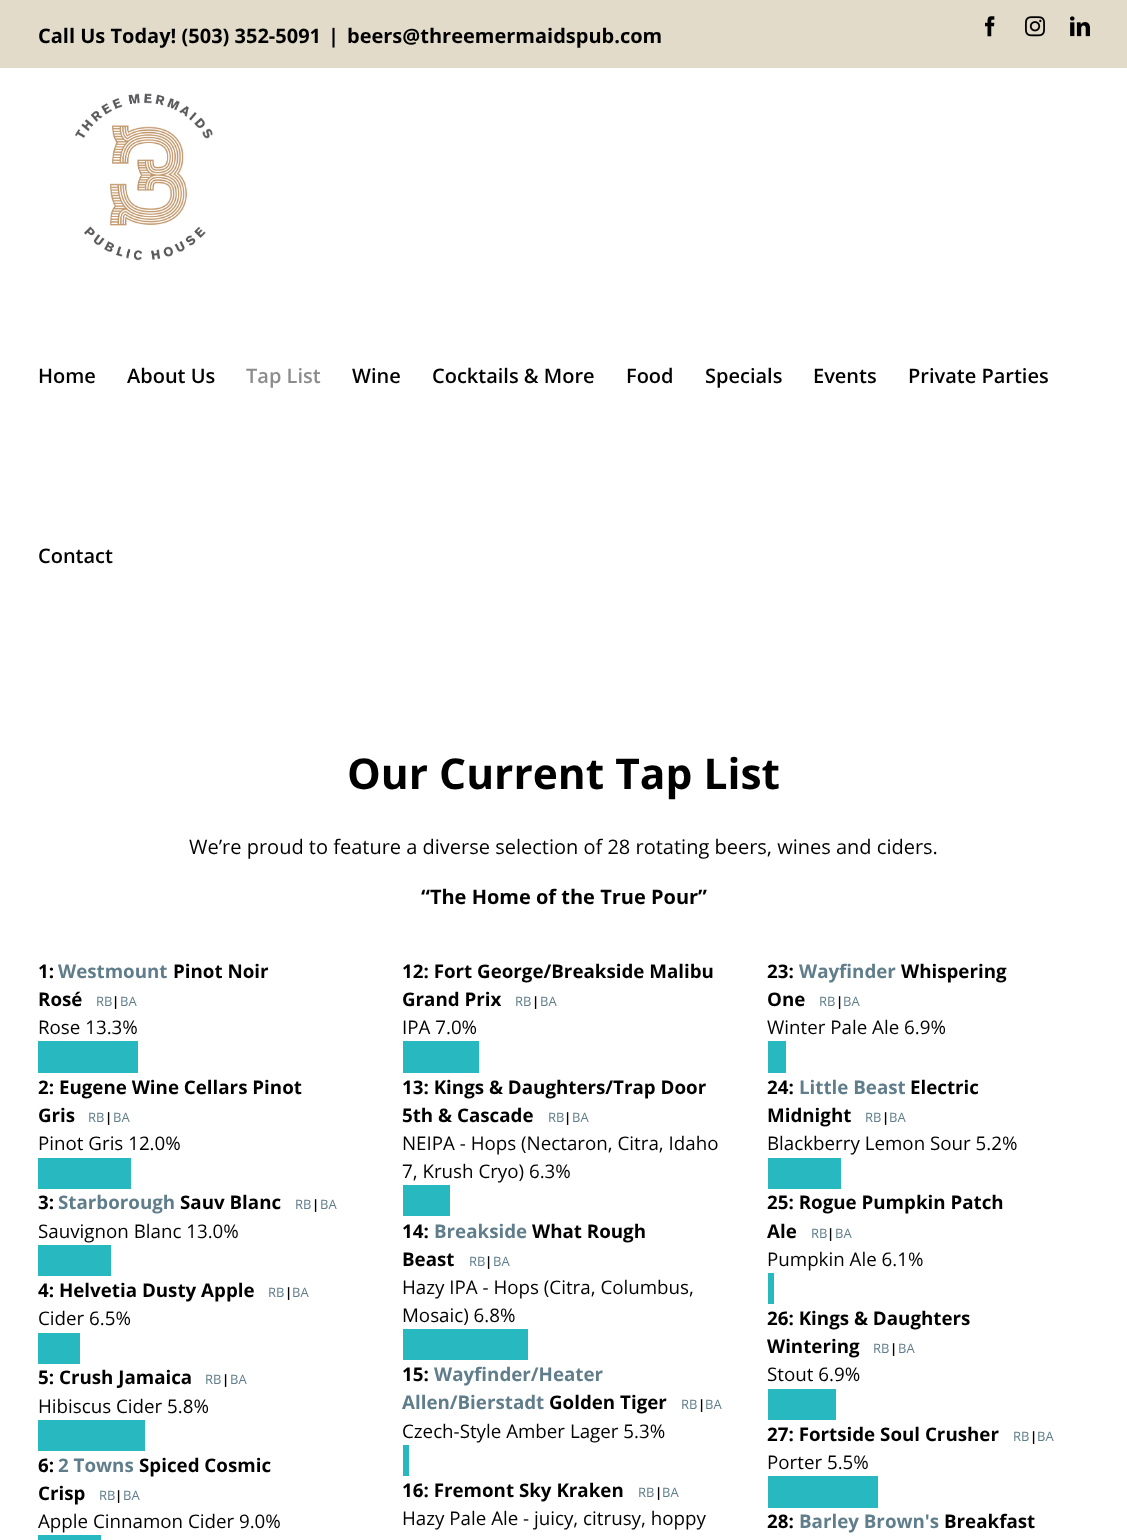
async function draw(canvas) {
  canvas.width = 1127;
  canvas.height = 1540;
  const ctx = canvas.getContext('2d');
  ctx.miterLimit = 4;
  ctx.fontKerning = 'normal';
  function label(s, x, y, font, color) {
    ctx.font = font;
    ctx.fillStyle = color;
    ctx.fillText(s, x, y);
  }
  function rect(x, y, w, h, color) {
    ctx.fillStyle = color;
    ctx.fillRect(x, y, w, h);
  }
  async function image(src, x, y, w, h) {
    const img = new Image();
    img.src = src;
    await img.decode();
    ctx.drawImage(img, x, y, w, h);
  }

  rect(0, 0, 1127, 1540, '#fff');
  rect(0, 0, 1127, 68, '#e2dbc9');
  label('Call Us Today! (503) 352-5091', 38, 43, 'bold 20px Open Sans', '#000');
  label('|', 328, 43, 'bold 20px Open Sans', '#000');
  label('beers@threemermaidspub.com', 347, 43, 'bold 20px Open Sans', '#000');
  await image('assets/img1.png', 985, 16, 10, 21);
  await image('assets/img2.png', 1025, 16, 20, 21);
  await image('assets/img3.png', 1070, 16, 20, 21);
  await image('assets/img4.png', 75, 93, 138, 168);
  label('Home', 38, 383, '600 20px Open Sans', '#000');
  label('About Us', 127, 383, '600 20px Open Sans', '#000');
  label('Tap List', 246, 383, '600 20px Open Sans', '#8c8c8c');
  label('Wine', 352, 383, '600 20px Open Sans', '#000');
  label('Cocktails & More', 432, 383, '600 20px Open Sans', '#000');
  label('Food', 626, 383, '600 20px Open Sans', '#000');
  label('Specials', 705, 383, '600 20px Open Sans', '#000');
  label('Events', 813, 383, '600 20px Open Sans', '#000');
  label('Private Parties', 908, 383, '600 20px Open Sans', '#000');
  label('Contact', 38, 563, '600 20px Open Sans', '#000');
  label('Our Current Tap List', 347, 789, 'bold 42.5px Open Sans', '#000');
  label('We’re proud to feature a diverse selection of 28 rotating beers, wines and ciders.', 189, 854, '20px Open Sans', '#000');
  label('“The Home of the True Pour”', 421, 904, 'bold 20px Open Sans', '#000');
  label('1:', 38, 978, 'bold 18.75px Open Sans', '#000');
  label('Westmount', 58, 978, 'bold 18.75px Open Sans', '#607d8b');
  label('Pinot Noir', 173, 978, 'bold 18.75px Open Sans', '#000');
  label('Rosé', 38, 1006, 'bold 18.75px Open Sans', '#000');
  label('RB', 96, 1006, '13px Open Sans', '#607d8b');
  label('|', 112, 1006, 'bold 13px Open Sans', '#000');
  label('BA', 120, 1006, '13px Open Sans', '#607d8b');
  label('Rose 13.3%', 38, 1034, '18.75px Open Sans', '#000');
  rect(38, 1041, 100, 32, '#28b8c0');
  label('2: Eugene Wine Cellars Pinot', 38, 1094, 'bold 18.75px Open Sans', '#000');
  label('Gris', 38, 1122, 'bold 18.75px Open Sans', '#000');
  label('RB', 88, 1122, '13px Open Sans', '#607d8b');
  label('|', 105, 1122, 'bold 13px Open Sans', '#000');
  label('BA', 113, 1122, '13px Open Sans', '#607d8b');
  label('Pinot Gris 12.0%', 38, 1150, '18.75px Open Sans', '#000');
  rect(38, 1158, 93, 31, '#28b8c0');
  label('3:', 38, 1209, 'bold 18.75px Open Sans', '#000');
  label('Starborough', 58, 1209, 'bold 18.75px Open Sans', '#607d8b');
  label('Sauv Blanc', 180, 1209, 'bold 18.75px Open Sans', '#000');
  label('RB', 295, 1209, '13px Open Sans', '#607d8b');
  label('|', 312, 1209, 'bold 13px Open Sans', '#000');
  label('BA', 320, 1209, '13px Open Sans', '#607d8b');
  label('Sauvignon Blanc 13.0%', 38, 1238, '18.75px Open Sans', '#000');
  rect(38, 1245, 73, 31, '#28b8c0');
  label('4: Helvetia Dusty Apple', 38, 1297, 'bold 18.75px Open Sans', '#000');
  label('RB', 268, 1297, '13px Open Sans', '#607d8b');
  label('|', 285, 1297, 'bold 13px Open Sans', '#000');
  label('BA', 292, 1297, '13px Open Sans', '#607d8b');
  label('Cider 6.5%', 38, 1325, '18.75px Open Sans', '#000');
  rect(38, 1333, 42, 31, '#28b8c0');
  label('5: Crush Jamaica', 38, 1384, 'bold 18.75px Open Sans', '#000');
  label('RB', 205, 1384, '13px Open Sans', '#607d8b');
  label('|', 222, 1384, 'bold 13px Open Sans', '#000');
  label('BA', 230, 1384, '13px Open Sans', '#607d8b');
  label('Hibiscus Cider 5.8%', 38, 1413, '18.75px Open Sans', '#000');
  rect(38, 1420, 107, 31, '#28b8c0');
  label('6:', 38, 1472, 'bold 18.75px Open Sans', '#000');
  label('2 Towns', 58, 1472, 'bold 18.75px Open Sans', '#607d8b');
  label('Spiced Cosmic', 139, 1472, 'bold 18.75px Open Sans', '#000');
  label('Crisp', 38, 1500, 'bold 18.75px Open Sans', '#000');
  label('RB', 99, 1500, '13px Open Sans', '#607d8b');
  label('|', 115, 1500, 'bold 13px Open Sans', '#000');
  label('BA', 123, 1500, '13px Open Sans', '#607d8b');
  label('Apple Cinnamon Cider 9.0%', 38, 1528, '18.75px Open Sans', '#000');
  rect(38, 1535, 63, 5, '#28b8c0');
  label('12: Fort George/Breakside Malibu', 402, 978, 'bold 18.75px Open Sans', '#000');
  label('Grand Prix', 402, 1006, 'bold 18.75px Open Sans', '#000');
  label('RB', 515, 1006, '13px Open Sans', '#607d8b');
  label('|', 532, 1006, 'bold 13px Open Sans', '#000');
  label('BA', 540, 1006, '13px Open Sans', '#607d8b');
  label('IPA 7.0%', 402, 1034, '18.75px Open Sans', '#000');
  rect(403, 1041, 76, 32, '#28b8c0');
  label('13: Kings & Daughters/Trap Door', 402, 1094, 'bold 18.75px Open Sans', '#000');
  label('5th & Cascade', 402, 1122, 'bold 18.75px Open Sans', '#000');
  label('RB', 548, 1122, '13px Open Sans', '#607d8b');
  label('|', 564, 1122, 'bold 13px Open Sans', '#000');
  label('BA', 572, 1122, '13px Open Sans', '#607d8b');
  label('NEIPA - Hops (Nectaron, Citra, Idaho', 402, 1150, '18.75px Open Sans', '#000');
  label('7, Krush Cryo) 6.3%', 402, 1178, '18.75px Open Sans', '#000');
  rect(403, 1185, 47, 31, '#28b8c0');
  label('14:', 402, 1238, 'bold 18.75px Open Sans', '#000');
  label('Breakside', 434, 1238, 'bold 18.75px Open Sans', '#607d8b');
  label('What Rough', 532, 1238, 'bold 18.75px Open Sans', '#000');
  label('Beast', 402, 1266, 'bold 18.75px Open Sans', '#000');
  label('RB', 469, 1266, '13px Open Sans', '#607d8b');
  label('|', 485, 1266, 'bold 13px Open Sans', '#000');
  label('BA', 493, 1266, '13px Open Sans', '#607d8b');
  label('Hazy IPA - Hops (Citra, Columbus,', 402, 1294, '18.75px Open Sans', '#000');
  label('Mosaic) 6.8%', 402, 1322, '18.75px Open Sans', '#000');
  rect(403, 1329, 125, 31, '#28b8c0');
  label('15:', 402, 1381, 'bold 18.75px Open Sans', '#000');
  label('Wayfinder/Heater', 434, 1381, 'bold 18.75px Open Sans', '#607d8b');
  label('Allen/Bierstadt', 402, 1409, 'bold 18.75px Open Sans', '#607d8b');
  label('Golden Tiger', 549, 1409, 'bold 18.75px Open Sans', '#000');
  label('RB', 681, 1409, '13px Open Sans', '#607d8b');
  label('|', 698, 1409, 'bold 13px Open Sans', '#000');
  label('BA', 705, 1409, '13px Open Sans', '#607d8b');
  label('Czech-Style Amber Lager 5.3%', 402, 1438, '18.75px Open Sans', '#000');
  rect(403, 1445, 6, 31, '#28b8c0');
  label('16: Fremont Sky Kraken', 402, 1497, 'bold 18.75px Open Sans', '#000');
  label('RB', 638, 1497, '13px Open Sans', '#607d8b');
  label('|', 655, 1497, 'bold 13px Open Sans', '#000');
  label('BA', 662, 1497, '13px Open Sans', '#607d8b');
  label('Hazy Pale Ale - juicy, citrusy, hoppy', 402, 1525, '18.75px Open Sans', '#000');
  label('23:', 767, 978, 'bold 18.75px Open Sans', '#000');
  label('Wayfinder', 799, 978, 'bold 18.75px Open Sans', '#607d8b');
  label('Whispering', 901, 978, 'bold 18.75px Open Sans', '#000');
  label('One', 767, 1006, 'bold 18.75px Open Sans', '#000');
  label('RB', 819, 1006, '13px Open Sans', '#607d8b');
  label('|', 836, 1006, 'bold 13px Open Sans', '#000');
  label('BA', 843, 1006, '13px Open Sans', '#607d8b');
  label('Winter Pale Ale 6.9%', 767, 1034, '18.75px Open Sans', '#000');
  rect(768, 1041, 18, 32, '#28b8c0');
  label('24:', 767, 1094, 'bold 18.75px Open Sans', '#000');
  label('Little Beast', 799, 1094, 'bold 18.75px Open Sans', '#607d8b');
  label('Electric', 910, 1094, 'bold 18.75px Open Sans', '#000');
  label('Midnight', 767, 1122, 'bold 18.75px Open Sans', '#000');
  label('RB', 865, 1122, '13px Open Sans', '#607d8b');
  label('|', 882, 1122, 'bold 13px Open Sans', '#000');
  label('BA', 889, 1122, '13px Open Sans', '#607d8b');
  label('Blackberry Lemon Sour 5.2%', 767, 1150, '18.75px Open Sans', '#000');
  rect(768, 1158, 73, 31, '#28b8c0');
  label('25: Rogue Pumpkin Patch', 767, 1209, 'bold 18.75px Open Sans', '#000');
  label('Ale', 767, 1238, 'bold 18.75px Open Sans', '#000');
  label('RB', 811, 1238, '13px Open Sans', '#607d8b');
  label('|', 827, 1238, 'bold 13px Open Sans', '#000');
  label('BA', 835, 1238, '13px Open Sans', '#607d8b');
  label('Pumpkin Ale 6.1%', 767, 1266, '18.75px Open Sans', '#000');
  rect(768, 1273, 6, 31, '#28b8c0');
  label('26: Kings & Daughters', 767, 1325, 'bold 18.75px Open Sans', '#000');
  label('Wintering', 767, 1353, 'bold 18.75px Open Sans', '#000');
  label('RB', 873, 1353, '13px Open Sans', '#607d8b');
  label('|', 890, 1353, 'bold 13px Open Sans', '#000');
  label('BA', 898, 1353, '13px Open Sans', '#607d8b');
  label('Stout 6.9%', 767, 1381, '18.75px Open Sans', '#000');
  rect(768, 1389, 68, 31, '#28b8c0');
  label('27: Fortside Soul Crusher', 767, 1441, 'bold 18.75px Open Sans', '#000');
  label('RB', 1013, 1441, '13px Open Sans', '#607d8b');
  label('|', 1030, 1441, 'bold 13px Open Sans', '#000');
  label('BA', 1037, 1441, '13px Open Sans', '#607d8b');
  label('Porter 5.5%', 767, 1469, '18.75px Open Sans', '#000');
  rect(768, 1476, 110, 32, '#28b8c0');
  label('28:', 767, 1528, 'bold 18.75px Open Sans', '#000');
  label('Barley Brown\'s', 799, 1528, 'bold 18.75px Open Sans', '#607d8b');
  label('Breakfast', 944, 1528, 'bold 18.75px Open Sans', '#000');
}

draw(document.querySelector('canvas'));
